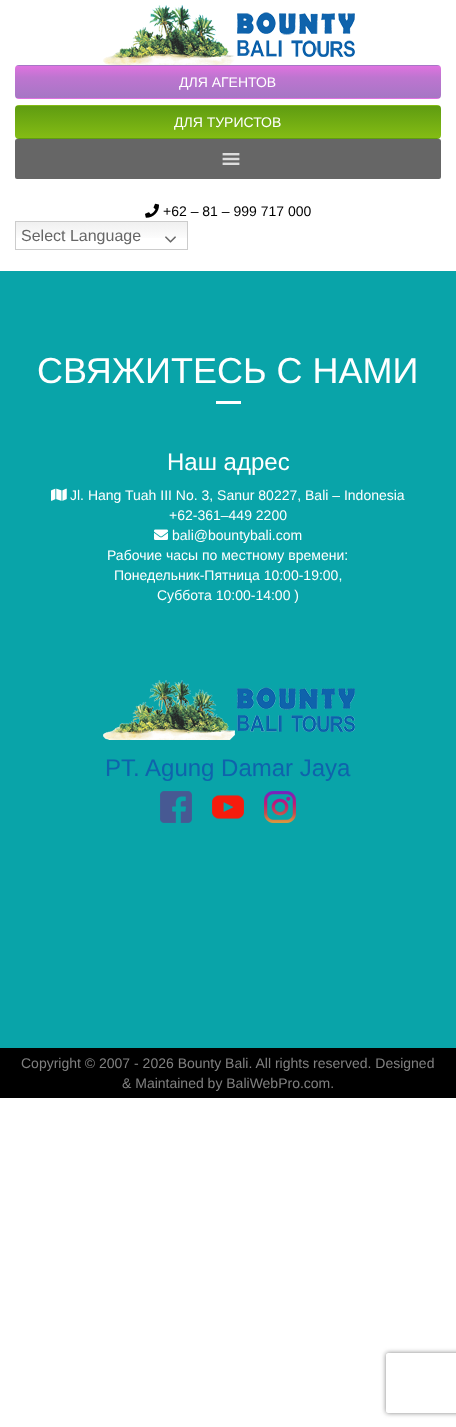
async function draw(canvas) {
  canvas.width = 456;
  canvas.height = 1427;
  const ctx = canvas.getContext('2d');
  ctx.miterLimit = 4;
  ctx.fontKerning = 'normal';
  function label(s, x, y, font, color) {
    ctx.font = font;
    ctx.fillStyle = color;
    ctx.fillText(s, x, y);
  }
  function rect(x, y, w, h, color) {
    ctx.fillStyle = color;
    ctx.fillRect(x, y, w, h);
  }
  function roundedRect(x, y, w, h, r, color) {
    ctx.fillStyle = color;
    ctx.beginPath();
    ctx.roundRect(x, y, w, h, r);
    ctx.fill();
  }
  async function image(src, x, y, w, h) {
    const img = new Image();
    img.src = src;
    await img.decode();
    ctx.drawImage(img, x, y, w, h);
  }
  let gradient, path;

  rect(0, 0, 456, 1427, '#fff');
  await image('assets/img1.png', 103, 5, 252, 60);
  ctx.save();
  ctx.beginPath();
  ctx.roundRect(15, 65, 426, 34, 4);
  ctx.clip();
  gradient = ctx.createLinearGradient(228, 66, 228, 34);
  gradient.addColorStop(0, '#a676c5');
  gradient.addColorStop(0.65, '#be75d0');
  gradient.addColorStop(1, '#df73e0');
  ctx.fillStyle = gradient;
  ctx.fillRect(15, 65, 426, 1);
  gradient = ctx.createLinearGradient(228, 98, 228, 66);
  gradient.addColorStop(0, '#a676c5');
  gradient.addColorStop(0.65, '#be75d0');
  gradient.addColorStop(1, '#df73e0');
  ctx.fillStyle = gradient;
  ctx.fillRect(15, 66, 426, 32);
  gradient = ctx.createLinearGradient(228, 130, 228, 98);
  gradient.addColorStop(0, '#a676c5');
  gradient.addColorStop(0.65, '#be75d0');
  gradient.addColorStop(1, '#df73e0');
  ctx.fillStyle = gradient;
  ctx.fillRect(15, 98, 426, 1);
  ctx.restore();
  label('ДЛЯ АГЕНТОВ', 179, 87, '14px Liberation Sans', '#fff');
  ctx.save();
  ctx.beginPath();
  ctx.roundRect(15, 105, 426, 34, 4);
  ctx.clip();
  gradient = ctx.createLinearGradient(228, 106, 228, 74);
  gradient.addColorStop(0, '#84bc14');
  gradient.addColorStop(1, '#5f9c11');
  ctx.fillStyle = gradient;
  ctx.fillRect(15, 105, 426, 1);
  gradient = ctx.createLinearGradient(228, 138, 228, 106);
  gradient.addColorStop(0, '#84bc14');
  gradient.addColorStop(1, '#5f9c11');
  ctx.fillStyle = gradient;
  ctx.fillRect(15, 106, 426, 32);
  gradient = ctx.createLinearGradient(228, 170, 228, 138);
  gradient.addColorStop(0, '#84bc14');
  gradient.addColorStop(1, '#5f9c11');
  ctx.fillStyle = gradient;
  ctx.fillRect(15, 138, 426, 1);
  ctx.restore();
  label('ДЛЯ ТУРИСТОВ', 174, 127, '14px Liberation Sans', '#fff');
  roundedRect(15, 139, 426, 40, 2, '#666');
  await image('assets/img2.png', 222, 153, 18, 12);
  await image('assets/img3.png', 145, 203, 14, 15);
  label('+62 – 81 – 999 717 000', 163, 216, '14px Liberation Sans', '#000');
  gradient = ctx.createLinearGradient(102, 221, 102, 250);
  gradient.addColorStop(0, '#efefef');
  gradient.addColorStop(0.7, '#fff');
  ctx.fillStyle = gradient;
  ctx.fillRect(16, 222, 171, 16);
  ctx.strokeStyle = '#ccc';
  ctx.strokeRect(15.5, 221.5, 172, 28);
  label('Select Language', 21, 241, '16px Liberation Sans', '#666');
  await image('assets/img4.png', 165, 236, 11, 7);
  rect(0, 271, 456, 777, '#09a4a9');
  label('СВЯЖИТЕСЬ С НАМИ', 37, 383, '36px Liberation Sans', '#fff');
  rect(216, 401, 25, 3, '#fff');
  label('Наш адрес', 167, 470, '24px Liberation Sans', '#fff');
  await image('assets/img5.png', 51, 488, 16, 13);
  label('Jl. Hang Tuah III No. 3, Sanur 80227, Bali – Indonesia', 70, 500, '14px Liberation Sans', '#fff');
  label('+62-361–449 2200', 169, 520, '14px Liberation Sans', '#fff');
  await image('assets/img6.png', 154, 529, 14, 11);
  label('bali@bountybali.com', 172, 540, '14px Liberation Sans', '#fff');
  label('Рабочие часы по местному времени:', 107, 560, '14px Liberation Sans', '#fff');
  label('Понедельник-Пятница 10:00-19:00,', 114, 580, '14px Liberation Sans', '#fff');
  label('Суббота 10:00-14:00 )', 157, 600, '14px Liberation Sans', '#fff');
  await image('assets/img7.png', 103, 680, 252, 60);
  label('PT. Agung Damar Jaya', 105, 776, '24px Liberation Sans', '#0f63ac');
  await image('assets/img8.png', 160, 791, 32, 32);
  await image('assets/img9.png', 212, 795, 32, 24);
  await image('assets/img10.png', 264, 791, 32, 32);
  rect(0, 1048, 456, 50, '#000');
  label('Copyright © 2007 - 2026 Bounty Bali. All rights reserved. Designed', 21, 1068, '14px Liberation Sans', '#808080');
  label('& Maintained by BaliWebPro.com.', 122, 1088, '14px Liberation Sans', '#808080');
  ctx.save();
  path = new Path2D('M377 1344H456V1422H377ZM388 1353H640C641 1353 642 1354 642 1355V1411C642 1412 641 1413 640 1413H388C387 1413 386 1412 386 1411V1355C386 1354 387 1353 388 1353Z');
  ctx.clip(path, 'evenodd');
  ctx.filter = 'blur(2.5px)';
  ctx.beginPath();
  ctx.roundRect(386, 1353, 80, 60, 2);
  ctx.fill();
  ctx.filter = 'none';
  ctx.restore();
}

draw(document.querySelector('canvas'));
